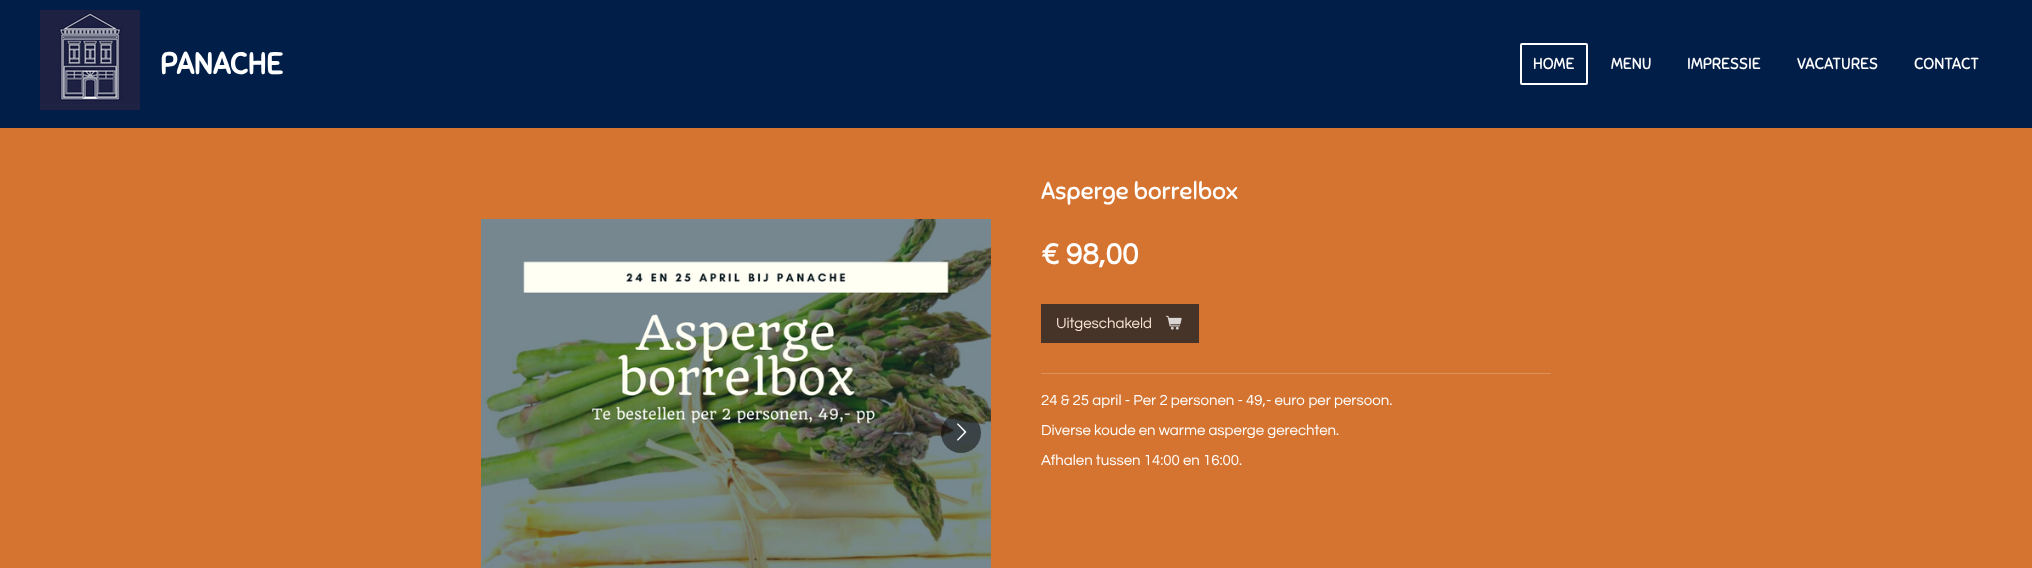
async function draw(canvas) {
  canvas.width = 2032;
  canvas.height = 568;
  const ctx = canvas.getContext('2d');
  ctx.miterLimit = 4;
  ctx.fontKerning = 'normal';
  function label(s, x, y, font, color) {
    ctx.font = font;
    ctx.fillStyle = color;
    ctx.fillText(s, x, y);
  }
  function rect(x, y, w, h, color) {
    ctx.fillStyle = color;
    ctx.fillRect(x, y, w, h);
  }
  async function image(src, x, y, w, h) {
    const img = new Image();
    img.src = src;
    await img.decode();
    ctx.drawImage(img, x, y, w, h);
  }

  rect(0, 0, 2032, 568, '#d57430');
  rect(0, 0, 2032, 128, '#011e48');
  await image('assets/img1.png', 40, 10, 100, 100);
  label('PANACHE', 160, 74, 'bold 30px Sniglet', '#fff');
  ctx.beginPath();
  ctx.roundRect(1521, 44, 66, 40, 1);
  ctx.strokeStyle = '#fff';
  ctx.lineWidth = 2;
  ctx.stroke();
  label('HOME', 1533, 69, '16px Sniglet', '#fff');
  label('MENU', 1611, 69, '16px Sniglet', '#fff');
  label('IMPRESSIE', 1687, 69, '16px Sniglet', '#fff');
  label('VACATURES', 1797, 69, '16px Sniglet', '#fff');
  label('CONTACT', 1914, 69, '16px Sniglet', '#fff');
  label('Asperge borrelbox', 1041, 199, '24px Sniglet', '#fff');
  await image('assets/img2.png', 481, 219, 510, 349);
  ctx.fillStyle = '#00000080';
  ctx.beginPath();
  ctx.arc(961, 433, 20, 0, 2 * Math.PI);
  ctx.fill();
  await image('assets/img3.png', 957, 423, 10, 18);
  label('€ 98,00', 1041, 264, 'bold 30px Questrial', '#fff');
  rect(1041, 304, 158, 39, '#473429');
  label('Uitgeschakeld', 1056, 328, '15px Questrial', '#f7e3d6');
  await image('assets/img4.png', 1166, 315, 16, 15);
  rect(1041, 373, 510, 1, '#dd9059');
  label('24 & 25 april - Per 2 personen - 49,- euro per persoon.', 1041, 405, '15px Questrial', '#fff');
  label('Diverse koude en warme asperge gerechten.', 1041, 435, '15px Questrial', '#fff');
  label('Afhalen tussen 14:00 en 16:00.', 1041, 465, '15px Questrial', '#fff');
}

draw(document.querySelector('canvas'));
